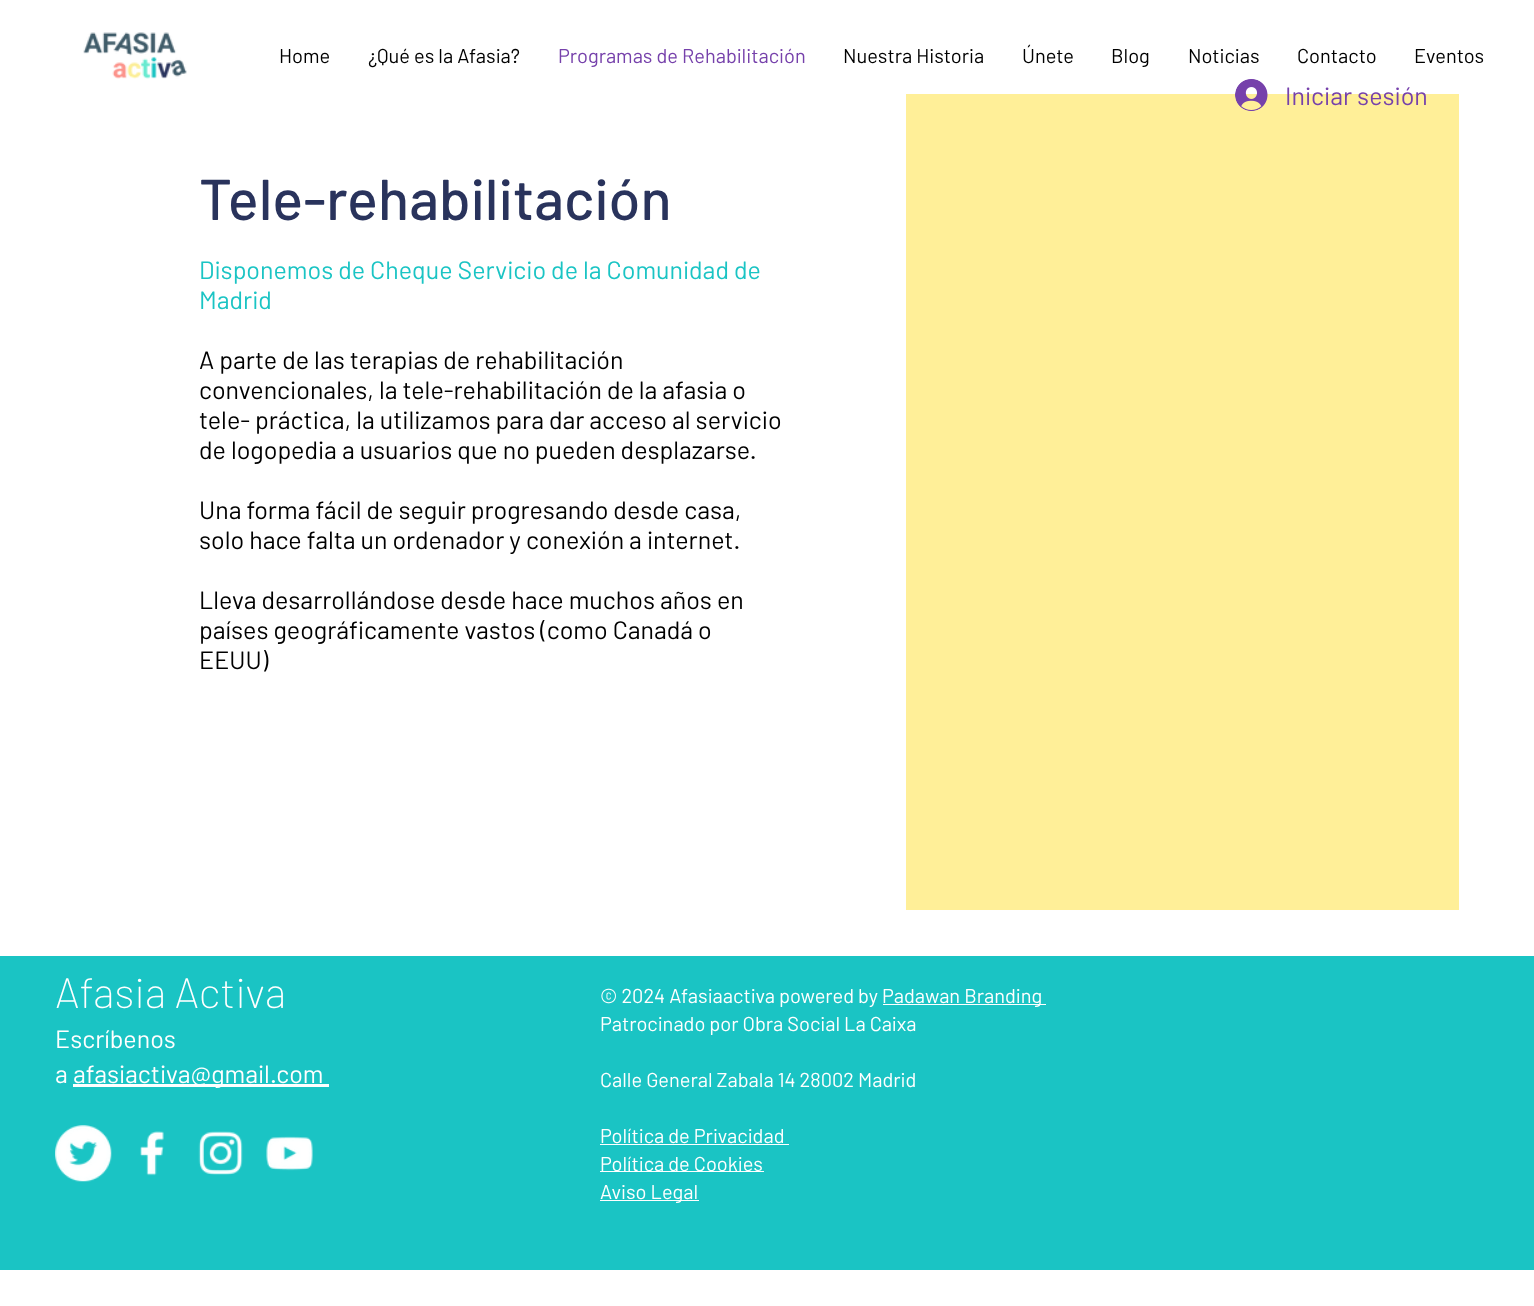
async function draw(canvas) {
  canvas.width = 1534;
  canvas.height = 1306;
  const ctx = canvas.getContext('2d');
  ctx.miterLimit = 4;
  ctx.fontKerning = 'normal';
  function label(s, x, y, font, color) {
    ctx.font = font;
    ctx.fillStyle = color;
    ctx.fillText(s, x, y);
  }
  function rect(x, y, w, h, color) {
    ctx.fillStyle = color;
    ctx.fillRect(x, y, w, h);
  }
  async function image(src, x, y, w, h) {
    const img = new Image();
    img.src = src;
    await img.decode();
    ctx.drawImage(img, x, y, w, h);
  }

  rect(0, 0, 1534, 1306, '#fff');
  await image('assets/img1.png', 83, 32, 104, 47);
  label('Home', 279, 63, '20px Barlow', '#000');
  label('¿Qué es la Afasia?', 368, 63, '20px Barlow', '#000');
  label('Programas de Rehabilitación', 558, 63, '20px Barlow', '#7641ab');
  label('Nuestra Historia', 843, 63, '20px Barlow', '#000');
  label('Únete', 1022, 63, '20px Barlow', '#000');
  label('Blog', 1111, 63, '20px Barlow', '#000');
  label('Noticias', 1188, 63, '20px Barlow', '#000');
  label('Contacto', 1297, 63, '20px Barlow', '#000');
  label('Eventos', 1414, 63, '20px Barlow', '#000');
  rect(906, 94, 553, 816, '#ffef98');
  await image('assets/img2.png', 1235, 79, 33, 32);
  label('Iniciar sesión', 1285, 105, '25px Barlow', '#7641ab');
  label('Tele-rehabilitación', 199, 220, '500 57.5px Barlow', '#29335c');
  label('Disponemos de Cheque Servicio de la Comunidad de', 199, 279, '25px Barlow', '#1ac4c4');
  label('Madrid', 199, 309, '25px Barlow', '#1ac4c4');
  label('A parte de las terapias de rehabilitación', 199, 369, '25px Barlow', '#000');
  label('convencionales, la tele-rehabilitación de la afasia o', 199, 399, '25px Barlow', '#000');
  label('tele- práctica, la utilizamos para dar acceso al servicio', 199, 429, '25px Barlow', '#000');
  label('de logopedia a usuarios que no pueden desplazarse.', 199, 459, '25px Barlow', '#000');
  label('Una forma fácil de seguir progresando desde casa,', 199, 519, '25px Barlow', '#000');
  label('solo hace falta un ordenador y conexión a internet.', 199, 549, '25px Barlow', '#000');
  label('Lleva desarrollándose desde hace muchos años en', 199, 609, '25px Barlow', '#000');
  label('países geográficamente vastos (como Canadá o', 199, 639, '25px Barlow', '#000');
  label('EEUU)', 199, 669, '25px Barlow', '#000');
  rect(0, 956, 1534, 314, '#1ac4c4');
  label('Afasia Activa', 55, 1008, '200 42.5px Barlow', '#fff');
  label('Escríbenos', 55, 1048, '25px Barlow', '#fff');
  label('a', 55, 1083, '25px Barlow', '#fff');
  rect(73, 1084, 256, 3, '#fff');
  label('afasiactiva@gmail.com', 73, 1083, '25px Barlow', '#fff');
  await image('assets/img3.png', 55, 1125, 57, 57);
  await image('assets/img4.png', 140, 1131, 24, 45);
  await image('assets/img5.png', 198, 1131, 45, 44);
  await image('assets/img6.png', 266, 1136, 47, 35);
  label('© 2024 Afasiaactiva powered by', 600, 1003, '20px Barlow', '#fff');
  rect(883, 1004, 163, 1, '#fff');
  label('Padawan Branding', 882, 1003, '20px Barlow', '#fff');
  label('Patrocinado por Obra Social La Caixa', 600, 1031, '20px Barlow', '#fff');
  label('Calle General Zabala 14 28002 Madrid', 600, 1087, '20px Barlow', '#fff');
  label('Política de Privacidad', 600, 1143, '20px Barlow', '#fff');
  rect(600, 1144, 189, 1, '#fff');
  rect(600, 1171, 164, 1, '#fff');
  label('Política de Cookies', 600, 1171, '20px Barlow', '#fff');
  rect(600, 1200, 99, 1, '#fff');
  label('Aviso Legal', 600, 1199, '20px Barlow', '#fff');
}

draw(document.querySelector('canvas'));
